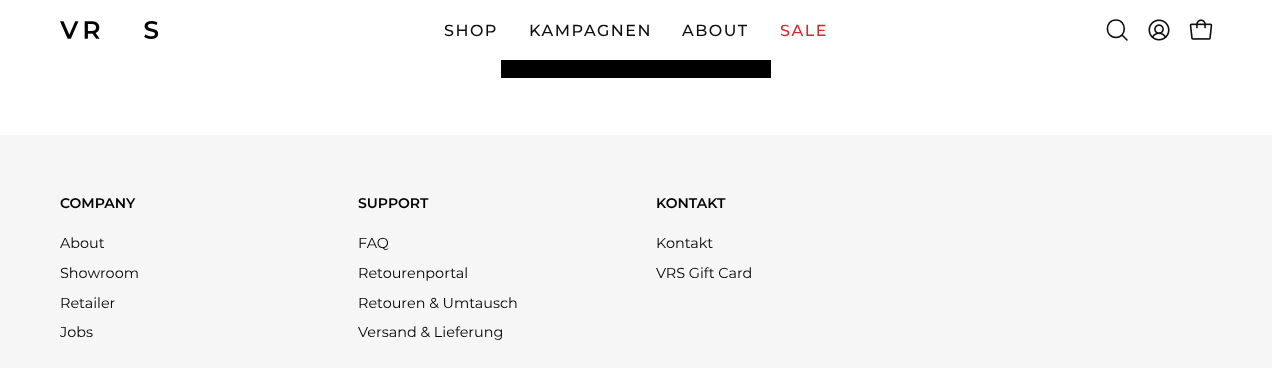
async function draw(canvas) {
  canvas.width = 1272;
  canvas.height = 368;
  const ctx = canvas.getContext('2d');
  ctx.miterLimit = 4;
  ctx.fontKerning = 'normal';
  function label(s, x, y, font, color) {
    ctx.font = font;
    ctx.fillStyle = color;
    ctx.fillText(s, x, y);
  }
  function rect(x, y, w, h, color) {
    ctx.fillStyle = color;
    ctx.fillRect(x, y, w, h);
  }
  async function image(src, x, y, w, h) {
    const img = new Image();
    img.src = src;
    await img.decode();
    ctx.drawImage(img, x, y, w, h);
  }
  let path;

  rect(0, 0, 1272, 368, '#fff');
  await image('assets/img1.png', 60, 21, 98, 18);
  ctx.letterSpacing = '1.5px';
  label('SHOP', 444, 36, '500 16px Montserrat', '#0d0d0d');
  label('KAMPAGNEN', 529, 36, '500 16px Montserrat', '#0d0d0d');
  label('ABOUT', 682, 36, '500 16px Montserrat', '#0d0d0d');
  label('SALE', 780, 36, '500 16px Montserrat', '#d02e2e');
  path = new Path2D('M1116 37.5C1127 37.5 1127 20 1116 20C1104.5 20 1104.5 37.5 1116 37.5ZM1122 35L1127 40');
  ctx.strokeStyle = '#0d0d0d';
  ctx.lineWidth = 1.6;
  ctx.lineCap = 'round';
  ctx.lineJoin = 'round';
  ctx.stroke(path);
  await image('assets/img2.png', 1148, 19, 22, 22);
  await image('assets/img3.png', 1189, 19, 24, 21);
  rect(501, 60, 270, 18, '#000');
  rect(0, 135, 1272, 233, '#f6f6f6');
  ctx.letterSpacing = '0px';
  label('COMPANY', 60, 208, '600 14px Montserrat', '#000');
  label('About', 60, 248, '14.4px Montserrat', '#000');
  label('Showroom', 60, 278, '14.4px Montserrat', '#000');
  label('Retailer', 60, 308, '14.4px Montserrat', '#000');
  label('Jobs', 60, 337, '14.4px Montserrat', '#000');
  label('SUPPORT', 358, 208, '600 14px Montserrat', '#000');
  label('FAQ', 358, 248, '14.4px Montserrat', '#000');
  label('Retourenportal', 358, 278, '14.4px Montserrat', '#000');
  label('Retouren & Umtausch', 358, 308, '14.4px Montserrat', '#000');
  label('Versand & Lieferung', 358, 337, '14.4px Montserrat', '#000');
  label('KONTAKT', 656, 208, '600 14px Montserrat', '#000');
  label('Kontakt', 656, 248, '14.4px Montserrat', '#000');
  label('VRS Gift Card', 656, 278, '14.4px Montserrat', '#000');
}

draw(document.querySelector('canvas'));
